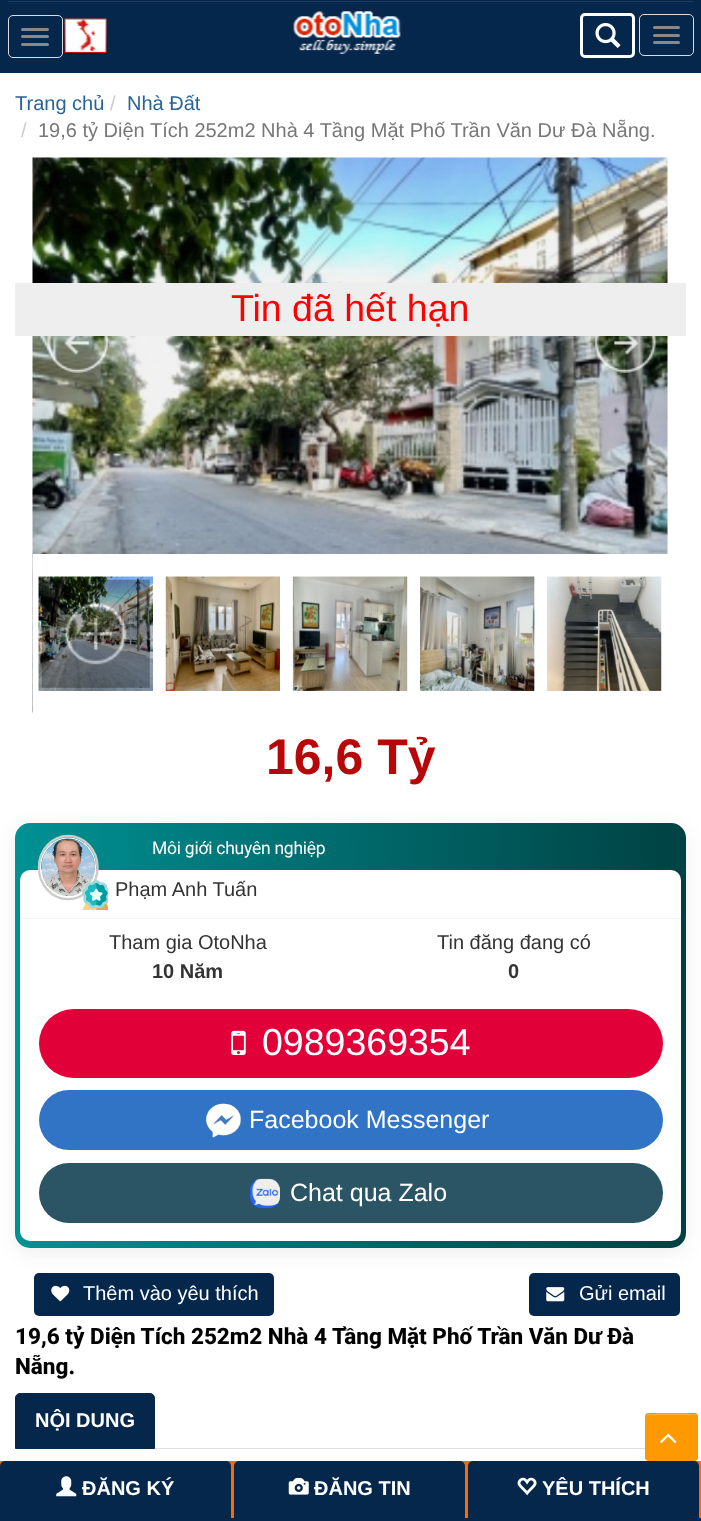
async function draw(canvas) {
  canvas.width = 701;
  canvas.height = 1521;
  const ctx = canvas.getContext('2d');
  ctx.miterLimit = 4;
  ctx.fontKerning = 'normal';
  function label(s, x, y, font, color) {
    ctx.font = font;
    ctx.fillStyle = color;
    ctx.fillText(s, x, y);
  }
  function rect(x, y, w, h, color) {
    ctx.fillStyle = color;
    ctx.fillRect(x, y, w, h);
  }
  function roundedRect(x, y, w, h, r, color) {
    ctx.fillStyle = color;
    ctx.beginPath();
    ctx.roundRect(x, y, w, h, r);
    ctx.fill();
  }
  async function image(src, x, y, w, h) {
    const img = new Image();
    img.src = src;
    await img.decode();
    ctx.drawImage(img, x, y, w, h);
  }
  let gradient, path;

  rect(0, 0, 701, 1521, '#fff');
  label('Trang chủ', 15, 110, '20px Liberation Sans', '#2a6496');
  label('/', 110, 110, '20px Liberation Sans', '#ccc');
  label('Nhà Đất', 127, 110, '20px Liberation Sans', '#2a6496');
  label('/', 21, 137, '20px Liberation Sans', '#ccc');
  label('19,6 tỷ Diện Tích 252m2 Nhà 4 Tầng Mặt Phố Trần Văn Dư Đà Nẵng.', 38, 137, '20px Liberation Sans', '#777');
  rect(667, 158, 1, 396, '#f6f6f6');
  await image('assets/img1.png', 32, 157, 636, 556);
  await image('assets/img2.png', 47, 336, 62, 37);
  await image('assets/img3.png', 593, 336, 63, 37);
  rect(33, 554, 635, 159, '#fff');
  await image('assets/img4.png', 38, 576, 115, 115);
  await image('assets/img5.png', 41, 579, 109, 109);
  await image('assets/img6.png', 165, 576, 115, 115);
  await image('assets/img7.png', 292, 576, 116, 115);
  await image('assets/img8.png', 420, 576, 115, 115);
  await image('assets/img9.png', 547, 576, 115, 115);
  rect(15, 283, 671, 53, '#eee');
  label('Tin đã hết hạn', 231, 321, '37.5px Liberation Sans', '#f00');
  label('16,6 Tỷ', 266, 774, 'bold 50px Liberation Sans', '#b80709');
  ctx.fillStyle = '#2c2c2c14';
  ctx.filter = 'blur(10px)';
  ctx.beginPath();
  ctx.roundRect(15, 828, 671, 425, 15);
  ctx.fill();
  ctx.filter = 'none';
  gradient = ctx.createLinearGradient(13, 1031, 689, 1039);
  gradient.addColorStop(0, '#009194');
  gradient.addColorStop(1, '#004142');
  ctx.fillStyle = gradient;
  ctx.beginPath();
  ctx.roundRect(15, 823, 671, 425, 15);
  ctx.fill();
  ctx.letterSpacing = '-0.25px';
  label('Môi giới chuyên nghiệp', 152, 854, '17.5px Roboto', '#fff');
  roundedRect(20, 870, 661, 371, 10, '#fff');
  rect(20, 918, 661, 1, '#f2f2f2');
  path = new Path2D('M68 836C84.5 836 97.5 850 97.5 867.5C97.5 885 84.5 899 68 899C52 899 39 885 39 867.5C39 850 52 836 68 836Z');
  ctx.strokeStyle = '#ccc';
  ctx.lineWidth = 2.5;
  ctx.stroke(path);
  path = new Path2D('M68 838C83.5 838 95.5 851.5 95.5 867.5C95.5 883.5 83.5 897 68 897C53 897 40.5 883.5 40.5 867.5C40.5 851.5 53 838 68 838Z');
  ctx.strokeStyle = '#fff';
  ctx.lineWidth = 1.2;
  ctx.stroke(path);
  await image('assets/img10.png', 41, 838, 54, 58);
  await image('assets/img11.png', 82, 880, 26, 30);
  ctx.letterSpacing = '0px';
  label('Phạm Anh Tuấn', 115, 896, '20px Liberation Sans', '#333');
  label('Tham gia OtoNha', 109, 949, '20px Liberation Sans', '#333');
  label('10 Năm', 152, 978, 'bold 20px Liberation Sans', '#333');
  label('Tin đăng đang có', 437, 949, '20px Liberation Sans', '#333');
  label('0', 508, 978, 'bold 20px Liberation Sans', '#333');
  roundedRect(39, 1009, 624, 69, 34.5, '#e20039');
  await image('assets/img12.png', 231, 1030, 15, 25);
  label('0989369354', 262, 1055, '37.5px Liberation Sans', '#fff');
  roundedRect(39, 1090, 624, 60, 30, '#3174c5');
  await image('assets/img13.png', 205, 1103, 36, 35);
  label('Facebook Messenger', 249, 1128, '25px Liberation Sans', '#fff');
  roundedRect(39, 1163, 624, 60, 30, '#2b5464');
  await image('assets/img14.png', 250, 1178, 30, 30);
  label('Chat qua Zalo', 290, 1201, '25px Liberation Sans', '#fff');
  roundedRect(34, 1273, 240, 43, 5, '#05274c');
  await image('assets/img15.png', 51, 1285, 19, 17);
  label('Thêm vào yêu thích', 83, 1300, '20px Liberation Sans', '#fff');
  roundedRect(529, 1273, 151, 43, 5, '#05274c');
  await image('assets/img16.png', 546, 1287, 19, 15);
  label('Gửi email', 579, 1300, '20px Liberation Sans', '#fff');
  label('19,6 tỷ Diện Tích 252m2 Nhà 4 Tầng Mặt Phố Trần Văn Dư Đà', 15, 1344, '800 22.5px Roboto', '#000');
  label('Nẵng.', 15, 1374, '800 22.5px Roboto', '#000');
  rect(155, 1448, 490, 1, '#ddd');
  ctx.fillStyle = '#05274c';
  ctx.beginPath();
  ctx.roundRect(15.5, 1393.5, 139, 55, [4.5, 4.5, 0, 0]);
  ctx.fill();
  ctx.strokeStyle = '#05274c';
  ctx.lineWidth = 1;
  ctx.stroke();
  label('NỘI DUNG', 35, 1427, 'bold 20px Liberation Sans', '#fff');
  rect(0, 0, 701, 73, '#05274c');
  await image('assets/img17.png', 293, 11, 108, 43);
  ctx.beginPath();
  ctx.roundRect(581.5, 14.5, 52, 42, 3.5);
  ctx.strokeStyle = '#fff';
  ctx.lineWidth = 3;
  ctx.stroke();
  await image('assets/img18.png', 595, 23, 26, 25);
  rect(8, 1, 686, 1, '#1e3d5e');
  ctx.beginPath();
  ctx.roundRect(8.5, 15.5, 54, 42, 4.5);
  ctx.strokeStyle = '#ddd';
  ctx.lineWidth = 1;
  ctx.stroke();
  roundedRect(21, 28, 28, 3, 1.5, '#888');
  roundedRect(21, 35, 28, 3, 1.5, '#888');
  roundedRect(21, 43, 28, 3, 1.5, '#888');
  await image('assets/img19.png', 63, 18, 45, 37);
  ctx.beginPath();
  ctx.roundRect(639.5, 14.5, 54, 41, 4.5);
  ctx.stroke();
  roundedRect(653, 26, 27, 3, 1.5, '#888');
  roundedRect(653, 34, 27, 3, 1.5, '#888');
  roundedRect(653, 41, 27, 3, 1.5, '#888');
  rect(0, 1461, 701, 57, '#ff6a00');
  rect(0, 1518, 701, 3, '#05274c');
  ctx.beginPath();
  ctx.roundRect(0, 1461, 231, 57, [5, 5, 0, 0]);
  ctx.fill();
  await image('assets/img20.png', 56, 1476, 21, 21);
  label('ĐĂNG KÝ', 82, 1495, 'bold 20px Liberation Sans', '#fff');
  ctx.fillStyle = '#05274c';
  ctx.beginPath();
  ctx.roundRect(234, 1461, 231, 57, [5, 5, 0, 0]);
  ctx.fill();
  await image('assets/img21.png', 288, 1477, 21, 18);
  label('ĐĂNG TIN', 314, 1495, 'bold 20px Liberation Sans', '#fff');
  ctx.fillStyle = '#05274c';
  ctx.beginPath();
  ctx.roundRect(468, 1461, 231, 57, [5, 5, 0, 0]);
  ctx.fill();
  await image('assets/img22.png', 517, 1477, 20, 19);
  label('YÊU THÍCH', 542, 1495, 'bold 20px Liberation Sans', '#fff');
  roundedRect(645, 1413, 53, 48, 4, '#f90');
  ctx.fillStyle = '#ffb340';
  path = new Path2D('M649 1415H694C695 1415 696 1416 696 1418C696 1412 691 1414 686 1414H656C651 1414 646 1412 646 1418C646 1416 647 1415 649 1415Z');
  ctx.fill(path);
  ctx.beginPath();
  ctx.roundRect(645.5, 1413.5, 52, 47, 3.5);
  ctx.strokeStyle = '#f90';
  ctx.stroke();
  await image('assets/img23.png', 660, 1433, 17, 11);
}

draw(document.querySelector('canvas'));
